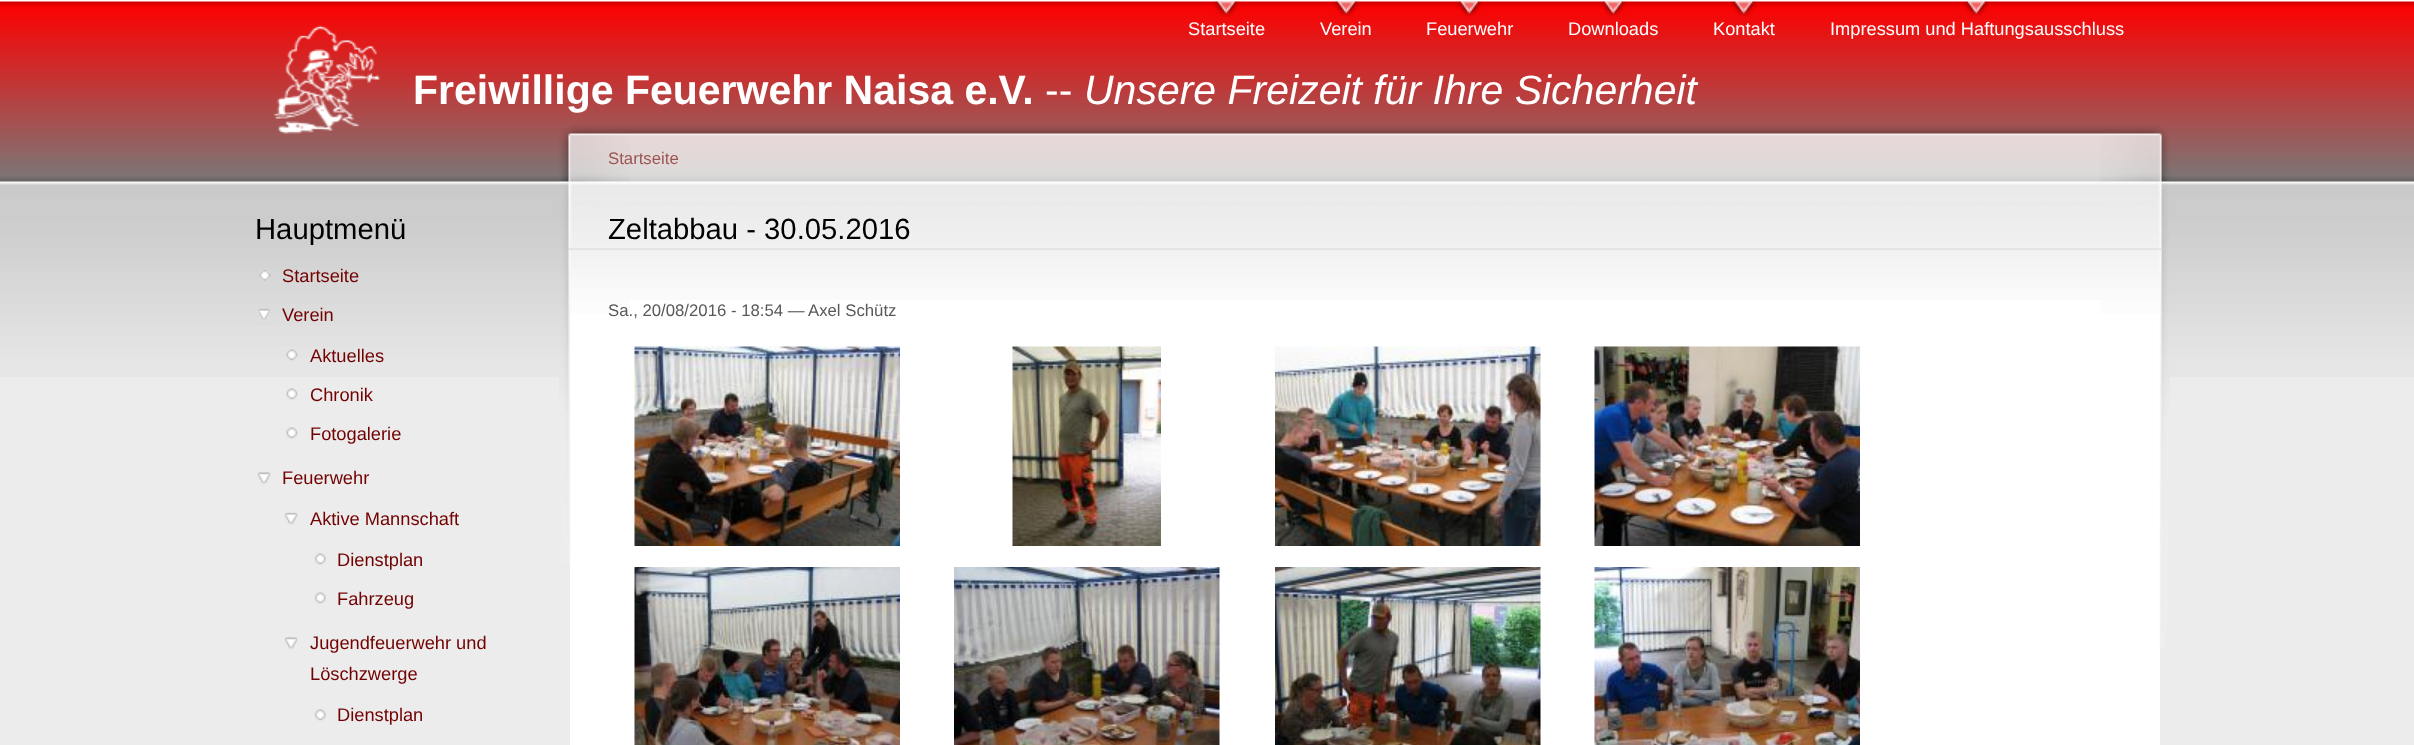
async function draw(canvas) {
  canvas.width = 2414;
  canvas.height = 745;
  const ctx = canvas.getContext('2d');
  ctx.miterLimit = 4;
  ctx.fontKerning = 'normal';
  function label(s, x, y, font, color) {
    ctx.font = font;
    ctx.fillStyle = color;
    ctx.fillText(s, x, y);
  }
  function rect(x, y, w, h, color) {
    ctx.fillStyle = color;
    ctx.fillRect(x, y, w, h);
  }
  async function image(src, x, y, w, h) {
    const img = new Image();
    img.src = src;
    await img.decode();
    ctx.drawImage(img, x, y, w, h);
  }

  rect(0, 0, 2414, 745, '#ececec');
  await image('assets/img1.png', 0, 0, 2414, 377);
  await image('assets/img2.png', 1213, 1, 26, 16);
  label('Startseite', 1188, 35, '18.25px Liberation Sans', '#fff');
  await image('assets/img3.png', 1333, 1, 26, 16);
  label('Verein', 1320, 35, '18.25px Liberation Sans', '#fff');
  await image('assets/img3.png', 1456, 1, 26, 16);
  label('Feuerwehr', 1426, 35, '18.25px Liberation Sans', '#fff');
  await image('assets/img2.png', 1600, 1, 26, 16);
  label('Downloads', 1568, 35, '18.25px Liberation Sans', '#fff');
  await image('assets/img4.png', 1731, 1, 26, 16);
  label('Kontakt', 1713, 35, '18.25px Liberation Sans', '#fff');
  await image('assets/img3.png', 1963, 1, 26, 16);
  label('Impressum und Haftungsausschluss', 1830, 35, '18.25px Liberation Sans', '#fff');
  await image('assets/img5.png', 273, 25, 107, 109);
  label('Freiwillige Feuerwehr Naisa e.V.', 413, 104, 'bold 41px Liberation Sans', '#fff');
  label('--', 1045, 104, '41px Liberation Sans', '#fff');
  label('Unsere Freizeit für Ihre Sicherheit', 1084, 104, 'italic 41px Liberation Sans', '#fff');
  label('Hauptmenü', 255, 239, '29.25px Liberation Sans', '#000');
  await image('assets/img6.png', 259, 270, 12, 11);
  label('Startseite', 282, 282, '18.25px Liberation Sans', '#720101');
  await image('assets/img7.png', 256, 308, 16, 13);
  label('Verein', 282, 321, '18.25px Liberation Sans', '#720101');
  await image('assets/img8.png', 286, 349, 12, 12);
  label('Aktuelles', 310, 362, '18.25px Liberation Sans', '#720101');
  await image('assets/img9.png', 286, 388, 12, 12);
  label('Chronik', 310, 401, '18.25px Liberation Sans', '#720101');
  await image('assets/img9.png', 286, 427, 12, 12);
  label('Fotogalerie', 310, 440, '18.25px Liberation Sans', '#720101');
  await image('assets/img10.png', 257, 472, 14, 13);
  label('Feuerwehr', 282, 484, '18.25px Liberation Sans', '#720101');
  await image('assets/img11.png', 284, 512, 14, 13);
  label('Aktive Mannschaft', 310, 525, '18.25px Liberation Sans', '#720101');
  await image('assets/img12.png', 314, 553, 12, 12);
  label('Dienstplan', 337, 566, '18.25px Liberation Sans', '#720101');
  await image('assets/img12.png', 314, 592, 12, 12);
  label('Fahrzeug', 337, 605, '18.25px Liberation Sans', '#720101');
  await image('assets/img13.png', 284, 637, 14, 13);
  label('Jugendfeuerwehr und', 310, 649, '18.25px Liberation Sans', '#720101');
  label('Löschzwerge', 310, 680, '18.25px Liberation Sans', '#720101');
  await image('assets/img12.png', 314, 709, 12, 12);
  label('Dienstplan', 337, 721, '18.25px Liberation Sans', '#720101');
  rect(570, 300, 1590, 445, '#fff');
  await image('assets/img14.png', 570, 120, 1590, 180);
  await image('assets/img15.png', 2100, 127, 70, 521);
  await image('assets/img16.png', 559, 127, 71, 436);
  label('Startseite', 608, 164, '16.75px Liberation Sans', '#9c5550');
  rect(569, 248, 1593, 2, '#e5e5e5');
  label('Zeltabbau - 30.05.2016', 608, 239, '29.25px Liberation Sans', '#000');
  label('Sa., 20/08/2016 - 18:54 —', 608, 316, '16.75px Liberation Sans', '#595959');
  label('Axel Schütz', 808, 316, '16.75px Liberation Sans', '#595959');
  await image('assets/img17.png', 634, 346, 266, 200);
  await image('assets/img18.png', 1012, 346, 149, 200);
  await image('assets/img19.png', 1275, 346, 266, 200);
  await image('assets/img20.png', 1594, 346, 266, 200);
  await image('assets/img21.png', 634, 567, 266, 178);
  await image('assets/img22.png', 954, 567, 266, 178);
  await image('assets/img23.png', 1275, 567, 266, 178);
  await image('assets/img24.png', 1594, 567, 266, 178);
}

draw(document.querySelector('canvas'));
